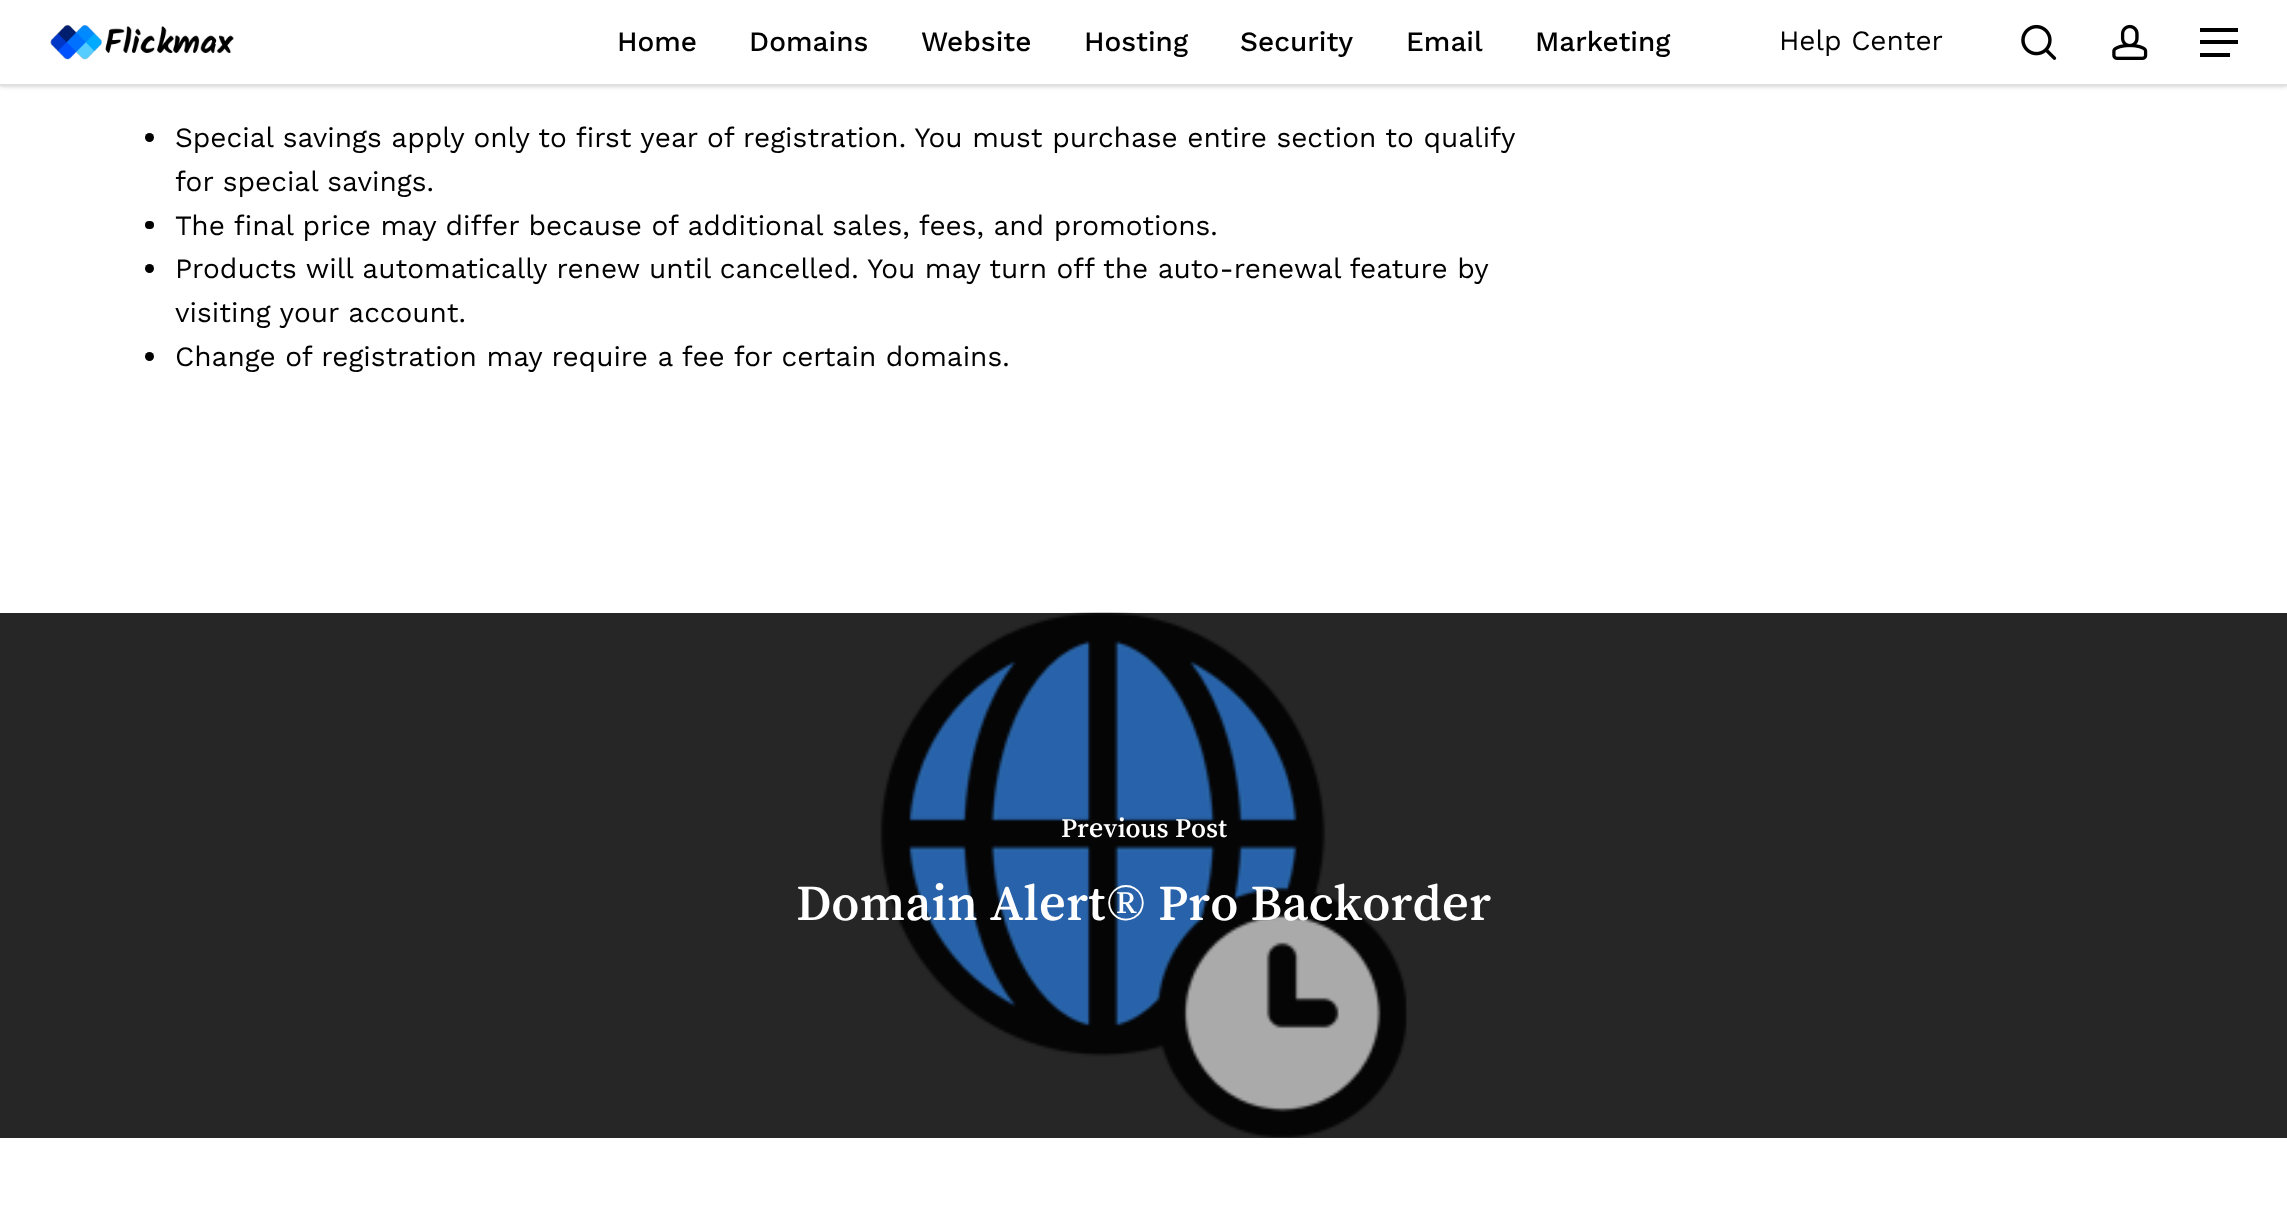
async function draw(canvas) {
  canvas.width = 2287;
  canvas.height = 1232;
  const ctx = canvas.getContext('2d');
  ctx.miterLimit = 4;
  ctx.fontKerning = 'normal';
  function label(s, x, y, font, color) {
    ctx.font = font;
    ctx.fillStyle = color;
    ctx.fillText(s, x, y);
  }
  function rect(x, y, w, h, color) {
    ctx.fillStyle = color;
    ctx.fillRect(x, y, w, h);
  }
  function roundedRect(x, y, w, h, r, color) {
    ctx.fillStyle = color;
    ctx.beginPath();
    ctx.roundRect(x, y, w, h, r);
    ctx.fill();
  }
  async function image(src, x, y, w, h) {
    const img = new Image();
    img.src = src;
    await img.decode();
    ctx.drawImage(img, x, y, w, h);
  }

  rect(0, 0, 2287, 1232, '#fff');
  ctx.fillStyle = '#00000038';
  ctx.filter = 'blur(2.5px)';
  ctx.beginPath();
  ctx.rect(0, -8, 2287, 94);
  ctx.fill();
  ctx.filter = 'none';
  rect(0, 0, 2287, 84, '#fff');
  rect(0, 84, 2287, 2, '#e0e0e0');
  await image('assets/img1.png', 50, 24, 184, 36);
  label('Home', 617, 51, '500 28px Work Sans', '#000');
  label('Domains', 749, 51, '500 28px Work Sans', '#000');
  label('Website', 921, 51, '500 28px Work Sans', '#000');
  label('Hosting', 1084, 51, '500 28px Work Sans', '#000');
  label('Security', 1240, 51, '500 28px Work Sans', '#000');
  label('Email', 1406, 51, '500 28px Work Sans', '#000');
  label('Marketing', 1535, 51, '500 28px Work Sans', '#000');
  label('Help Center', 1779, 50, '28px Work Sans', '#000');
  await image('assets/img2.png', 2021, 24, 36, 36);
  await image('assets/img3.png', 2112, 24, 36, 36);
  rect(2200, 28, 38, 4, '#000');
  rect(2200, 53, 30, 4, '#000');
  rect(2200, 40, 38, 4, '#000');
  ctx.beginPath();
  ctx.arc(149.5, 137.5, 4.5, 0, 2 * Math.PI);
  ctx.fill();
  label('Special savings apply only to first year of registration. You must purchase entire section to qualify', 175, 147, '28px Work Sans', '#000');
  label('for special savings.', 175, 191, '28px Work Sans', '#000');
  roundedRect(145, 221, 9, 8, 4, '#000');
  label('The final price may differ because of additional sales, fees, and promotions.', 175, 235, '28px Work Sans', '#000');
  ctx.beginPath();
  ctx.arc(149.5, 268.5, 4.5, 0, 2 * Math.PI);
  ctx.fill();
  label('Products will automatically renew until cancelled. You may turn off the auto-renewal feature by', 175, 278, '28px Work Sans', '#000');
  label('visiting your account.', 175, 322, '28px Work Sans', '#000');
  ctx.beginPath();
  ctx.arc(149.5, 356.5, 4.5, 0, 2 * Math.PI);
  ctx.fill();
  label('Change of registration may require a fee for certain domains.', 175, 366, '28px Work Sans', '#000');
  rect(0, 613, 2287, 525, '#262626');
  await image('assets/img4.png', 880, 612, 527, 526);
  label('Previous Post', 1061, 837, '28px Song Myung', '#fff');
  label('Domain Alert', 796, 920, '52.5px Song Myung', '#fff');
  label('®', 1106, 920, '52.5px Liberation Serif', '#fff');
  label('Pro Backorder', 1158, 920, '52.5px Song Myung', '#fff');
}

draw(document.querySelector('canvas'));
